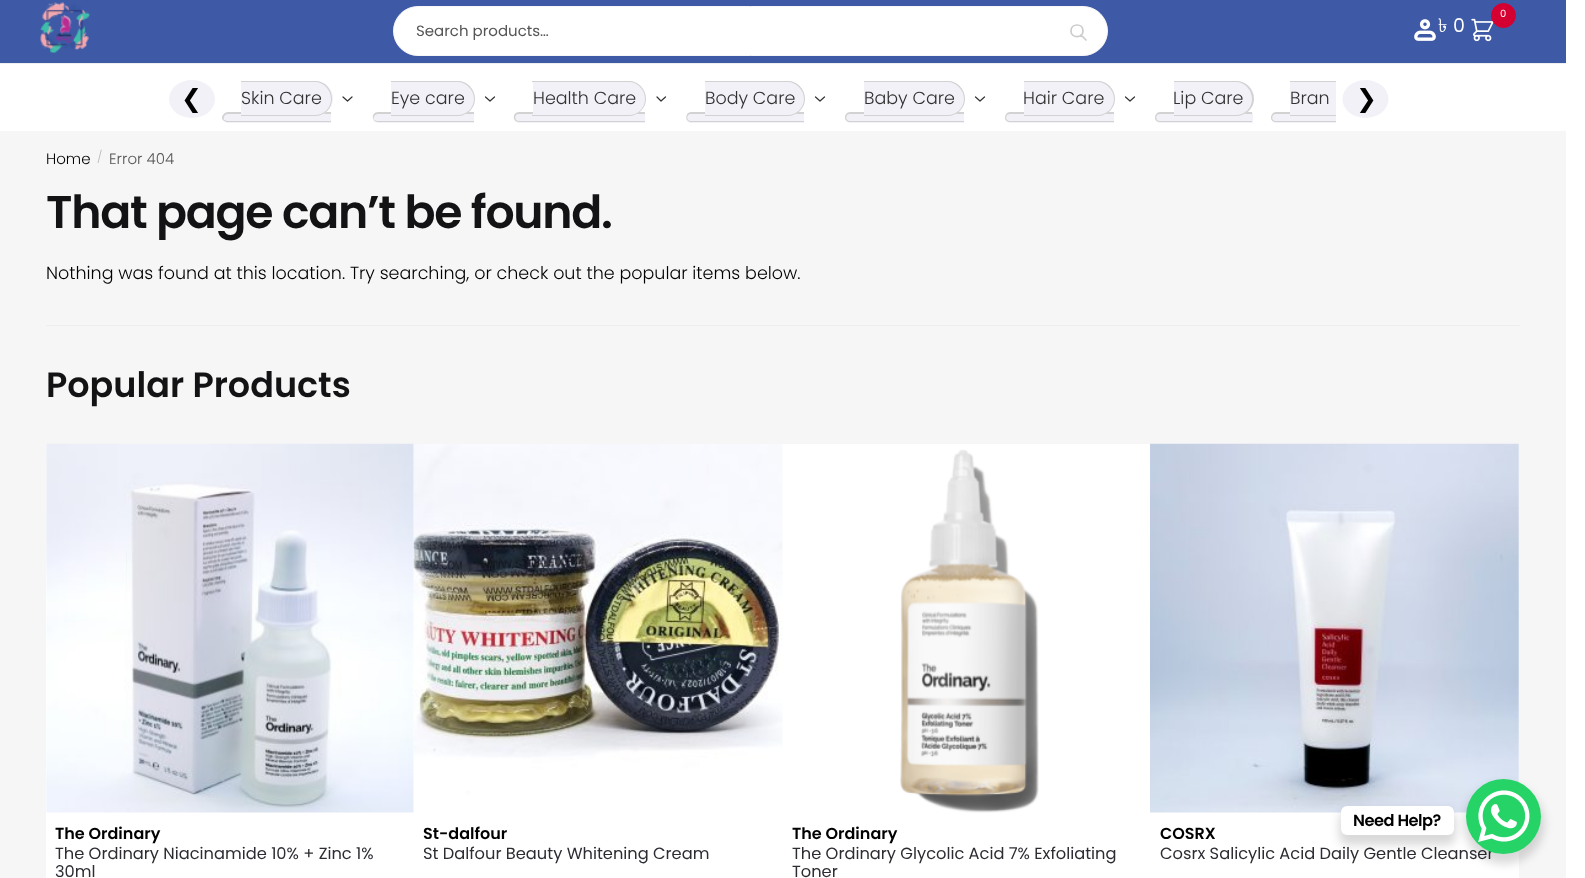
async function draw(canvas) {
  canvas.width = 1585;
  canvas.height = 878;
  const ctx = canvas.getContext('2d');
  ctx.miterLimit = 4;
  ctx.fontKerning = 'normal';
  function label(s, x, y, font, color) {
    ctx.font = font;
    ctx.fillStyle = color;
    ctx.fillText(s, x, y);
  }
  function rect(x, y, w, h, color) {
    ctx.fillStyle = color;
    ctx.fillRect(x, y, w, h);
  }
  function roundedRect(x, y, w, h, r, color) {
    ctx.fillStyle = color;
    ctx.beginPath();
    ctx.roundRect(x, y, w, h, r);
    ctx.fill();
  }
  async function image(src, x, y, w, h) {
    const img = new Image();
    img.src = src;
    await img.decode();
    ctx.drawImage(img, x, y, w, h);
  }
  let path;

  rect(0, 0, 1585, 878, '#f6f6f6');
  rect(0, 0, 1566, 63, '#3e59a5');
  await image('assets/img1.png', 40, 2, 50, 51);
  ctx.fillStyle = '#fff';
  ctx.beginPath();
  ctx.roundRect(393.5, 6.5, 714, 49, 24.5);
  ctx.fill();
  ctx.strokeStyle = '#f6f6f6';
  ctx.stroke();
  label('Search products…', 416, 36, '15px Poppins', '#555');
  path = new Path2D('M1086 40L1081 35M1083 31C1083 38.5 1071 38.5 1071 31C1071 23 1083 23 1083 31Z');
  ctx.strokeStyle = '#ccc';
  ctx.lineWidth = 1.7;
  ctx.lineCap = 'round';
  ctx.lineJoin = 'round';
  ctx.stroke(path);
  await image('assets/img2.png', 1414, 19, 22, 22);
  await image('assets/img3.png', 1471, 18, 23, 24);
  ctx.fillStyle = '#d50032';
  ctx.beginPath();
  ctx.arc(1503.5, 15.5, 12, 0, 2 * Math.PI);
  ctx.fill();
  ctx.strokeStyle = '#d50032';
  ctx.lineWidth = 1;
  ctx.stroke();
  label('0', 1500, 17, '10px Poppins', '#fff');
  label('৳', 1438, 32, '19px Lohit Bengali', '#fff');
  label('0', 1453, 32, '19px Poppins', '#fff');
  rect(1566, 0, 19, 878, '#fff');
  rect(0, 64, 1566, 67, '#fff');
  rect(0, 63, 1566, 1, '#eee');
  ctx.fillStyle = '#f2f1f7';
  ctx.beginPath();
  ctx.ellipse(192, 99, 23, 19, 0, 0, 2 * Math.PI);
  ctx.fill();
  label('❮', 181, 107, '25px DejaVu Sans', '#000');
  ctx.fillStyle = '#f2f1f7';
  ctx.beginPath();
  ctx.roundRect(223, 113, 108, 10, [5, 0, 0, 5]);
  ctx.fill();
  ctx.fillStyle = '#d2d2d2';
  path = new Path2D('M228 112H331V122H228C225 122 222 120 222 118C222 115 225 112 228 112ZM228 114H331V121H227L224 120C223 117 225 114 228 114Z');
  ctx.fill(path, 'evenodd');
  ctx.fillStyle = '#f2f1f7';
  ctx.beginPath();
  ctx.roundRect(241, 81, 92, 35, [0, 17.5, 17.5, 0]);
  ctx.fill();
  ctx.fillStyle = '#d2d2d2';
  path = new Path2D('M241 81H315C325 81 332 89 332 99C332 108 325 116 315 116H241ZM241 82H315C324 82 331 90 331 99C331 108 324 115 315 115H241Z');
  ctx.fill(path, 'evenodd');
  label('Skin Care', 241, 104, '300 17.5px Poppins', '#323232');
  path = new Path2D('M352 97L347.5 101L343 97');
  ctx.strokeStyle = '#323232';
  ctx.lineWidth = 1.2;
  ctx.stroke(path);
  ctx.fillStyle = '#f2f1f7';
  ctx.beginPath();
  ctx.roundRect(373, 113, 101, 10, [5, 0, 0, 5]);
  ctx.fill();
  ctx.fillStyle = '#d2d2d2';
  path = new Path2D('M378 112H474V122H378C371 122 371 112 378 112ZM378 114H474V121H377L374 120C373 117 375 114 378 114Z');
  ctx.fill(path, 'evenodd');
  ctx.fillStyle = '#f2f1f7';
  ctx.beginPath();
  ctx.roundRect(391, 81, 84, 35, [0, 17.5, 17.5, 0]);
  ctx.fill();
  ctx.fillStyle = '#d2d2d2';
  path = new Path2D('M391 81H458C467 81 475 89 475 99C475 108 467 116 458 116H391ZM391 82H458C466 82 474 90 474 99C474 108 466 115 458 115H391Z');
  ctx.fill(path, 'evenodd');
  label('Eye care', 391, 104, '300 17.5px Poppins', '#323232');
  path = new Path2D('M494.5 97L490 101L485.5 97');
  ctx.stroke(path);
  ctx.fillStyle = '#f2f1f7';
  ctx.beginPath();
  ctx.roundRect(514, 113, 131, 10, [5, 0, 0, 5]);
  ctx.fill();
  ctx.fillStyle = '#d2d2d2';
  path = new Path2D('M519 112H645V122H519C512 122 512 112 519 112ZM519 114H645V121H519C514 121 514 114 519 114Z');
  ctx.fill(path, 'evenodd');
  ctx.fillStyle = '#f2f1f7';
  ctx.beginPath();
  ctx.roundRect(533, 81, 113, 35, [0, 17.5, 17.5, 0]);
  ctx.fill();
  ctx.fillStyle = '#d2d2d2';
  path = new Path2D('M532 81H629C638 81 646 89 646 99C646 108 638 116 629 116H532ZM532 82H629C638 82 645 90 645 99C645 108 638 115 629 115H532Z');
  ctx.fill(path, 'evenodd');
  label('Health Care', 533, 104, '300 17.5px Poppins', '#323232');
  path = new Path2D('M665.5 97L661 101L657 97');
  ctx.stroke(path);
  ctx.fillStyle = '#f2f1f7';
  ctx.beginPath();
  ctx.roundRect(686, 113, 118, 10, [5, 0, 0, 5]);
  ctx.fill();
  ctx.fillStyle = '#d2d2d2';
  path = new Path2D('M691 112H804V122H690C685 121 685 112 691 112ZM691 114H804V121H691C686 121 686 114 691 114Z');
  ctx.fill(path, 'evenodd');
  ctx.fillStyle = '#f2f1f7';
  ctx.beginPath();
  ctx.roundRect(705, 81, 100, 35, [0, 17.5, 17.5, 0]);
  ctx.fill();
  ctx.fillStyle = '#d2d2d2';
  path = new Path2D('M705 81H788C797 81 805 89 805 99C805 108 797 116 788 116H705ZM705 82H788C796 82 804 90 804 99C804 108 796 115 788 115H705Z');
  ctx.fill(path, 'evenodd');
  label('Body Care', 705, 104, '300 17.5px Poppins', '#323232');
  path = new Path2D('M824.5 97L820 101L815.5 97');
  ctx.stroke(path);
  ctx.fillStyle = '#f2f1f7';
  ctx.beginPath();
  ctx.roundRect(845, 113, 119, 10, [5, 0, 0, 5]);
  ctx.fill();
  ctx.fillStyle = '#d2d2d2';
  path = new Path2D('M850 112H964V122H849C843 121 844 112 850 112ZM850 114H964V121H850C845 121 845 114 850 114Z');
  ctx.fill(path, 'evenodd');
  ctx.fillStyle = '#f2f1f7';
  ctx.beginPath();
  ctx.roundRect(864, 81, 101, 35, [0, 17.5, 17.5, 0]);
  ctx.fill();
  ctx.fillStyle = '#d2d2d2';
  path = new Path2D('M864 81H948C957 81 965 89 965 99C965 108 957 116 948 116H864ZM864 82H948C956 82 964 90 964 99C964 108 956 115 948 115H864Z');
  ctx.fill(path, 'evenodd');
  label('Baby Care', 864, 104, '300 17.5px Poppins', '#323232');
  path = new Path2D('M984.5 97L980 101L975.5 97');
  ctx.stroke(path);
  ctx.fillStyle = '#f2f1f7';
  ctx.beginPath();
  ctx.roundRect(1005, 113, 109, 10, [5, 0, 0, 5]);
  ctx.fill();
  ctx.fillStyle = '#d2d2d2';
  path = new Path2D('M1010 112H1114V122H1010C1007 122 1005 120 1005 118C1005 115 1007 112 1010 112ZM1010 114H1114V121H1009L1007 120C1005 117 1007 114 1010 114Z');
  ctx.fill(path, 'evenodd');
  ctx.fillStyle = '#f2f1f7';
  ctx.beginPath();
  ctx.roundRect(1024, 81, 91, 35, [0, 17.5, 17.5, 0]);
  ctx.fill();
  ctx.fillStyle = '#d2d2d2';
  path = new Path2D('M1024 81H1098C1107 81 1115 89 1115 99C1115 108 1107 116 1098 116H1024ZM1024 82H1098C1106 82 1114 90 1114 99C1114 108 1106 115 1098 115H1024Z');
  ctx.fill(path, 'evenodd');
  label('Hair Care', 1023, 104, '300 17.5px Poppins', '#323232');
  path = new Path2D('M1134.5 97L1130 101L1125.5 97');
  ctx.stroke(path);
  ctx.fillStyle = '#f2f1f7';
  ctx.beginPath();
  ctx.roundRect(1155, 113, 98, 10, [5, 0, 0, 5]);
  ctx.fill();
  ctx.fillStyle = '#d2d2d2';
  path = new Path2D('M1160 112H1252V122H1160C1157 122 1155 120 1155 118C1155 115 1157 112 1160 112ZM1160 114H1252V121H1160C1155 121 1155 114 1160 114Z');
  ctx.fill(path, 'evenodd');
  ctx.fillStyle = '#f2f1f7';
  ctx.beginPath();
  ctx.roundRect(1174, 81, 80, 35, [0, 17.5, 17.5, 0]);
  ctx.fill();
  ctx.fillStyle = '#d2d2d2';
  path = new Path2D('M1174 81H1236C1246 81 1254 89 1254 99C1254 108 1246 116 1236 116H1174ZM1174 82H1236C1245 82 1252 90 1252 99C1252 108 1245 115 1236 115H1174Z');
  ctx.fill(path, 'evenodd');
  label('Lip Care', 1173, 104, '300 17.5px Poppins', '#323232');
  ctx.fillStyle = '#f2f1f7';
  ctx.beginPath();
  ctx.roundRect(1271, 113, 65, 10, [5, 0, 0, 5]);
  ctx.fill();
  ctx.save();
  ctx.beginPath();
  ctx.rect(221, 64, 1115, 70);
  ctx.clip();
  ctx.fillStyle = '#d2d2d2';
  path = new Path2D('M1276 112H1381V122H1276C1273 122 1271 120 1271 118C1271 115 1273 112 1276 112ZM1276 114H1381V121H1275L1273 120C1271 117 1273 114 1276 114Z');
  ctx.fill(path, 'evenodd');
  ctx.restore();
  rect(1290, 82, 46, 32, '#f2f1f7');
  ctx.save();
  ctx.beginPath();
  ctx.rect(221, 64, 1115, 70);
  ctx.clip();
  ctx.fillStyle = '#d2d2d2';
  path = new Path2D('M1290 81H1365C1375 81 1382 89 1382 99C1382 108 1375 116 1365 116H1290ZM1290 82H1365C1374 82 1381 90 1381 99C1381 108 1374 115 1365 115H1290Z');
  ctx.fill(path, 'evenodd');
  ctx.restore();
  label('Bran', 1290, 104, '300 17.5px Poppins', '#323232');
  ctx.fillStyle = '#f2f1f7';
  ctx.beginPath();
  ctx.ellipse(1365.5, 99, 23, 19, 0, 0, 2 * Math.PI);
  ctx.fill();
  label('❯', 1356, 107, '25px DejaVu Sans', '#000');
  label('Home', 46, 164, '300 15px Poppins', '#000');
  label('/', 97, 161, '300 12px Poppins', '#b6b6b6');
  label('Error 404', 109, 164, '300 15px Poppins', '#555');
  ctx.letterSpacing = '-1.25px';
  label('That page can’t be found.', 46, 228, '600 45.75px Poppins', '#131315');
  ctx.letterSpacing = '0px';
  label('Nothing was found at this location. Try searching, or check out the popular items below.', 46, 279, '300 17.5px Poppins', '#000');
  rect(46, 325, 1474, 1, '#eee');
  label('Popular Products', 46, 397, '600 35px Poppins', '#131315');
  rect(46, 444, 1473, 434, '#fff');
  await image('assets/img4.png', 46, 443, 368, 370);
  label('The Ordinary', 55, 839, '600 16px Poppins', '#000');
  label('The Ordinary Niacinamide 10% + Zinc 1%', 55, 859, '16.25px Poppins', '#2c2d33');
  label('30ml', 55, 877, '16.25px Poppins', '#2c2d33');
  await image('assets/img5.png', 413, 444, 370, 368);
  label('St-dalfour', 423, 839, '600 16px Poppins', '#000');
  label('St Dalfour Beauty Whitening Cream', 423, 859, '16.25px Poppins', '#2c2d33');
  await image('assets/img6.png', 900, 449, 139, 364);
  label('The Ordinary', 792, 839, '600 16px Poppins', '#000');
  label('The Ordinary Glycolic Acid 7% Exfoliating', 792, 859, '16.25px Poppins', '#2c2d33');
  label('Toner', 792, 877, '16.25px Poppins', '#2c2d33');
  await image('assets/img7.png', 1150, 443, 369, 370);
  label('COSRX', 1160, 839, '600 16px Poppins', '#000');
  label('Cosrx Salicylic Acid Daily Gentle Cleanser', 1160, 859, '16.25px Poppins', '#2c2d33');
  ctx.fillStyle = '#00000026';
  ctx.filter = 'blur(5px)';
  ctx.beginPath();
  ctx.roundRect(1464, 784, 80, 80, 40);
  ctx.fill();
  ctx.filter = 'none';
  ctx.fillStyle = '#25d366';
  ctx.beginPath();
  ctx.arc(1503.5, 816.5, 37.5, 0, 2 * Math.PI);
  ctx.fill();
  ctx.fillStyle = '#00000026';
  ctx.filter = 'blur(5px)';
  ctx.beginPath();
  ctx.roundRect(1339, 811, 117, 34, 9);
  ctx.fill();
  ctx.filter = 'none';
  roundedRect(1341, 806, 113, 29, 6, '#fff');
  ctx.letterSpacing = '-0.5px';
  label('Need Help?', 1353, 826, '600 16.25px Poppins', '#000');
  await image('assets/img8.png', 1478, 790, 52, 52);
}

draw(document.querySelector('canvas'));
